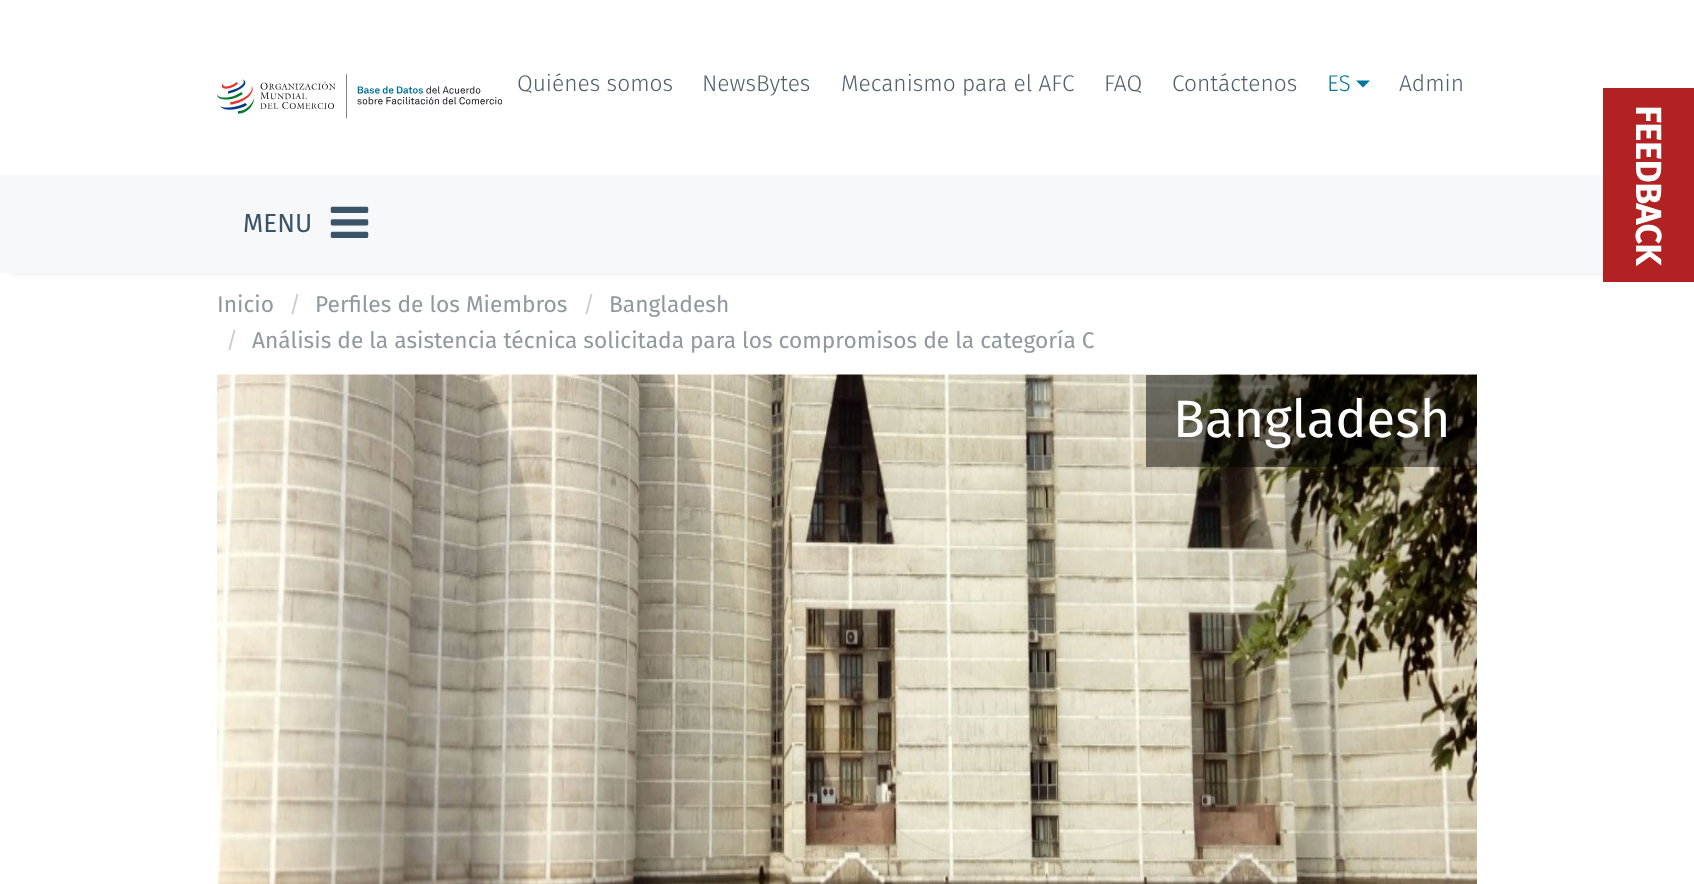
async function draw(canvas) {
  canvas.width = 1694;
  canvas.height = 884;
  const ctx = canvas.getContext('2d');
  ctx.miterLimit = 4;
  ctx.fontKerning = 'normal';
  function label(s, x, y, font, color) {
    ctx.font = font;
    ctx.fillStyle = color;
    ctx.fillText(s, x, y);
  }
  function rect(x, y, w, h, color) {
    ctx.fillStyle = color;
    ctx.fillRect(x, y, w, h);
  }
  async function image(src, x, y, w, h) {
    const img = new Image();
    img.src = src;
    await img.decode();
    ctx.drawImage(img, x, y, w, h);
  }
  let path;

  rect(0, 0, 1694, 884, '#fff');
  ctx.save();
  ctx.beginPath();
  ctx.rect(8, 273, 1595, 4);
  ctx.clip();
  ctx.fillStyle = '#0000001a';
  ctx.filter = 'blur(4.5px)';
  ctx.beginPath();
  ctx.rect(9, 18, 1676, 255);
  ctx.fill();
  ctx.filter = 'none';
  ctx.restore();
  await image('assets/img1.png', 217, 74, 285, 45);
  label('Quiénes somos', 517, 91, '300 22.75px Fira Sans', '#4e5e6a');
  label('NewsBytes', 702, 91, '300 22.75px Fira Sans', '#4e5e6a');
  label('Mecanismo para el AFC', 841, 91, '300 22.75px Fira Sans', '#4e5e6a');
  label('FAQ', 1104, 91, '300 22.75px Fira Sans', '#4e5e6a');
  label('Contáctenos', 1172, 91, '300 22.75px Fira Sans', '#4e5e6a');
  label('ES', 1327, 91, '300 22.75px Fira Sans', '#00779d');
  path = new Path2D('M1356 80.5H1370L1363 87.5Z');
  ctx.fill(path);
  label('Admin', 1399, 91, '300 22.75px Fira Sans', '#4e5e6a');
  rect(0, 175, 1603, 98, '#f7f8fa');
  label('MENU', 243, 232, '26px Fira Sans', '#3b5468');
  await image('assets/img2.png', 330, 206, 39, 32);
  label('Inicio', 217, 312, '22.75px Fira Sans', '#90999c');
  label('/', 289, 312, '22.75px Fira Sans', '#ccc');
  label('Perfiles de los Miembros', 315, 312, '22.75px Fira Sans', '#90999c');
  label('/', 583, 312, '22.75px Fira Sans', '#ccc');
  label('Bangladesh', 609, 312, '22.75px Fira Sans', '#90999c');
  label('/', 226, 348, '22.75px Fira Sans', '#ccc');
  label('Análisis de la asistencia técnica solicitada para los compromisos de la categoría C', 252, 348, '22.75px Fira Sans', '#90999c');
  await image('assets/img3.png', 217, 374, 1260, 510);
  rect(1146, 375, 331, 92, '#00000080');
  label('Bangladesh', 1173, 437, '52.5px Fira Sans', '#fff');
  rect(1603, 88, 91, 194, '#b22222');
  ctx.font = 'bold 35px Fira Sans';
  ctx.fillStyle = '#fff';
  ctx.save();
  ctx.translate(1636, 105);
  ctx.rotate(90 * Math.PI / 180);
  ctx.fillText('FEEDBACK', 0, 0);
  ctx.restore();
}

draw(document.querySelector('canvas'));
